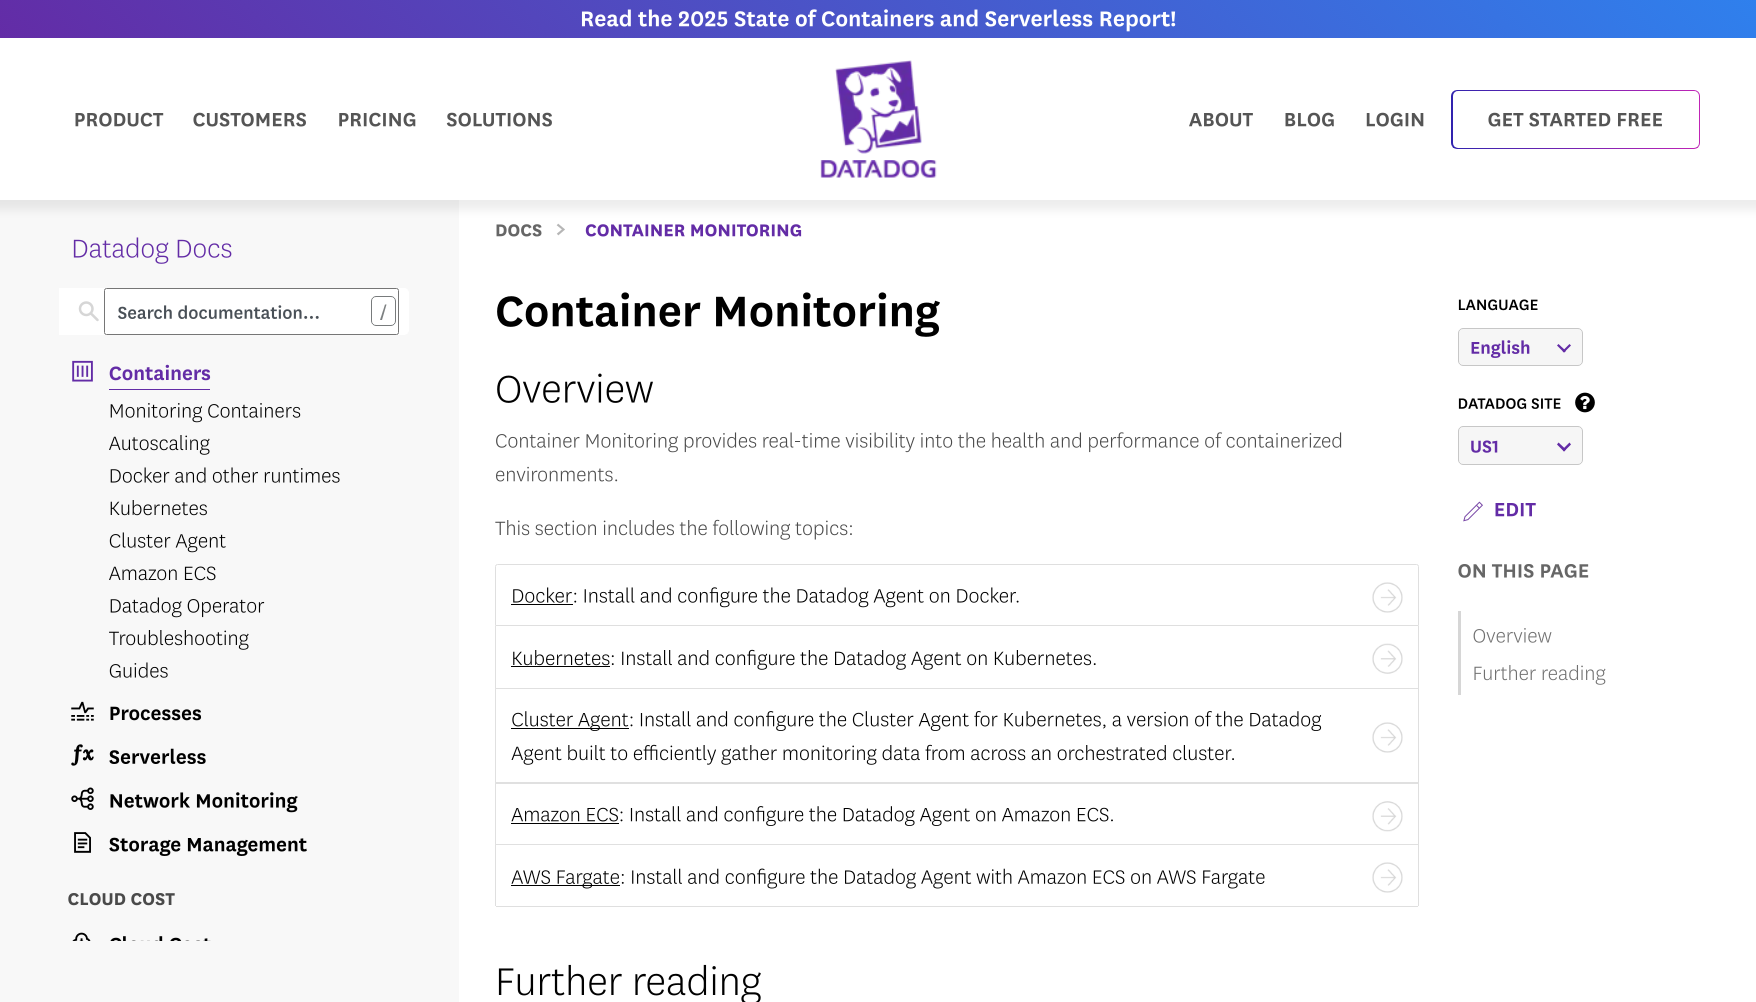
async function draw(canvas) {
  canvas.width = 1756;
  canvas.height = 1002;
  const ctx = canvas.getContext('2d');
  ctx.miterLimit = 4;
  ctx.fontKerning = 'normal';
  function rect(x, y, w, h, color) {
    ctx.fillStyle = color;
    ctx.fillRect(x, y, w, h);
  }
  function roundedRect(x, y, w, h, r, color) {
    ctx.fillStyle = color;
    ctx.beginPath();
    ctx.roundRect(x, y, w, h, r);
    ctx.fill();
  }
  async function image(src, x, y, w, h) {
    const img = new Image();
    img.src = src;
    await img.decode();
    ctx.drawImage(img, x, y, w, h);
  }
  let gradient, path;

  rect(0, 0, 1756, 1002, '#fff');
  rect(0, 200, 459, 802, '#f8f8f8');
  await image('assets/img37.png', 496, 224, 46, 13);
  await image('assets/img38.png', 556, 223, 9, 13);
  await image('assets/img39.png', 585, 224, 217, 13);
  ctx.fillStyle = '#00000012';
  ctx.filter = 'blur(5px)';
  ctx.beginPath();
  ctx.rect(-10, 28, 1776, 182);
  ctx.fill();
  ctx.filter = 'none';
  gradient = ctx.createLinearGradient(430, 467, 1327, -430);
  gradient.addColorStop(0, '#632ca6');
  gradient.addColorStop(1, '#2f80ed');
  ctx.fillStyle = gradient;
  ctx.fillRect(0, 0, 1756, 38);
  await image('assets/img1.png', 581, 9, 595, 23);
  rect(0, 38, 1756, 162, '#fff');
  await image('assets/img2.png', 75, 112, 89, 15);
  await image('assets/img3.png', 193, 112, 113, 15);
  await image('assets/img4.png', 339, 112, 77, 15);
  await image('assets/img5.png', 446, 112, 106, 15);
  await image('assets/img6.png', 835, 60, 87, 94);
  await image('assets/img7.png', 820, 160, 117, 18);
  await image('assets/img8.png', 1189, 112, 64, 15);
  await image('assets/img9.png', 1285, 112, 49, 15);
  await image('assets/img10.png', 1366, 112, 58, 15);
  gradient = ctx.createLinearGradient(1451, 119, 1700, 119);
  gradient.addColorStop(0, '#3023ae');
  gradient.addColorStop(1, '#c024b6');
  ctx.fillStyle = gradient;
  ctx.beginPath();
  ctx.roundRect(1451, 90, 249, 59, 6);
  ctx.fill();
  roundedRect(1453, 91, 246, 57, 5, '#fff');
  await image('assets/img11.png', 1488, 112, 174, 15);
  await image('assets/img12.png', 73, 237, 159, 27);
  roundedRect(59, 288, 350, 47, 5, '#fff');
  ctx.beginPath();
  ctx.roundRect(59, 288, 45, 47, [0, 4, 4, 0]);
  ctx.fill();
  await image('assets/img13.png', 78, 301, 21, 21);
  ctx.beginPath();
  ctx.roundRect(104.5, 288.5, 294, 46, 2);
  ctx.strokeStyle = '#767676';
  ctx.stroke();
  await image('assets/img14.png', 118, 305, 201, 14);
  ctx.beginPath();
  ctx.roundRect(371.5, 296.5, 24, 29, 4.5);
  ctx.strokeStyle = '#787b7c';
  ctx.stroke();
  ctx.fillStyle = '#7d8081';
  path = new Path2D('M382 320H380L385 304.5H386.5Z');
  ctx.fill(path);
  await image('assets/img15.png', 72, 360, 21, 22);
  await image('assets/img16.png', 109, 364, 102, 17);
  rect(109, 389, 101, 1, '#632ca6');
  await image('assets/img17.png', 110, 403, 191, 20);
  await image('assets/img18.png', 109, 435, 101, 20);
  await image('assets/img19.png', 110, 467, 230, 16);
  await image('assets/img20.png', 110, 500, 97, 16);
  await image('assets/img21.png', 109, 532, 117, 21);
  await image('assets/img22.png', 109, 566, 107, 15);
  await image('assets/img23.png', 110, 597, 155, 21);
  await image('assets/img24.png', 109, 630, 140, 20);
  await image('assets/img25.png', 109, 662, 59, 16);
  await image('assets/img26.png', 71, 701, 23, 20);
  await image('assets/img27.png', 110, 706, 92, 15);
  await image('assets/img28.png', 71, 744, 23, 22);
  await image('assets/img29.png', 109, 748, 97, 16);
  await image('assets/img30.png', 71, 787, 23, 23);
  await image('assets/img31.png', 110, 792, 188, 21);
  await image('assets/img32.png', 74, 832, 17, 21);
  await image('assets/img33.png', 109, 837, 198, 19);
  await image('assets/img34.png', 68, 893, 107, 13);
  await image('assets/img35.png', 72, 932, 19, 9);
  await image('assets/img36.png', 110, 936, 101, 5);
  await image('assets/img40.png', 497, 292, 443, 45);
  await image('assets/img41.png', 497, 373, 156, 30);
  await image('assets/img42.png', 496, 432, 846, 21);
  await image('assets/img43.png', 496, 466, 122, 16);
  await image('assets/img44.png', 495, 519, 357, 21);
  ctx.beginPath();
  ctx.roundRect(495.5, 564.5, 923, 61, [2, 2, 0, 0]);
  ctx.strokeStyle = '#dfdfdf';
  ctx.stroke();
  await image('assets/img45.png', 513, 587, 59, 16);
  await image('assets/img46.png', 574, 587, 445, 21);
  rect(511, 604, 62, 1, '#000');
  await image('assets/img47.png', 1372, 582, 31, 31);
  ctx.fillStyle = '#dfdfdf';
  path = new Path2D('M1419 626V689L1418 688V626Z');
  ctx.fill(path);
  ctx.fillStyle = '#0000001f';
  path = new Path2D('M1419 689H495L496 688H1418Z');
  ctx.fill(path);
  path = new Path2D('M495 689V626H496V688Z');
  ctx.fill(path);
  await image('assets/img48.png', 513, 650, 97, 16);
  await image('assets/img49.png', 611, 649, 485, 21);
  rect(511, 666, 99, 1, '#000');
  await image('assets/img50.png', 1372, 643, 31, 31);
  ctx.fillStyle = '#dfdfdf';
  path = new Path2D('M1419 689V784L1418 782V689Z');
  ctx.fill(path);
  ctx.fillStyle = '#0000001f';
  path = new Path2D('M1419 784H495L496 782H1418Z');
  ctx.fill(path);
  path = new Path2D('M495 784V689H496V782Z');
  ctx.fill(path);
  rect(511, 728, 118, 1, '#000');
  await image('assets/img51.png', 512, 711, 117, 20);
  await image('assets/img52.png', 630, 711, 692, 20);
  await image('assets/img53.png', 511, 744, 723, 21);
  await image('assets/img47.png', 1372, 722, 31, 31);
  ctx.fillStyle = '#dfdfdf';
  path = new Path2D('M1419 784V845L1418 844V784Z');
  ctx.fill(path);
  ctx.fillStyle = '#0000001f';
  path = new Path2D('M1419 845H495L496 844H1418Z');
  ctx.fill(path);
  path = new Path2D('M495 845V784H496V844Z');
  ctx.fill(path);
  await image('assets/img54.png', 511, 807, 107, 15);
  await image('assets/img55.png', 620, 806, 493, 20);
  rect(511, 823, 108, 1, '#000');
  await image('assets/img56.png', 1372, 801, 31, 31);
  rect(1418, 845, 1, 61, '#dfdfdf');
  rect(496, 906, 922, 1, '#dfdfdf');
  rect(495, 845, 1, 61, '#dfdfdf');
  rect(511, 885, 109, 1, '#000');
  await image('assets/img57.png', 511, 870, 108, 19);
  await image('assets/img58.png', 621, 868, 644, 21);
  await image('assets/img47.png', 1372, 862, 31, 31);
  await image('assets/img59.png', 498, 964, 263, 38);
  await image('assets/img60.png', 1458, 299, 80, 12);
  ctx.fillStyle = '#f6f6f6';
  ctx.beginPath();
  ctx.roundRect(1458.5, 328.5, 124, 37, 4.5);
  ctx.fill();
  ctx.strokeStyle = '#c7c7c7';
  ctx.stroke();
  await image('assets/img61.png', 1471, 340, 59, 18);
  ctx.fillStyle = '#632ca6';
  path = new Path2D('M1569.5 344L1571 345.5L1564 352.5L1562.5 351Z');
  ctx.fill(path);
  path = new Path2D('M1558.5 344L1566 351L1564 352.5L1557 345.5Z');
  ctx.fill(path);
  await image('assets/img62.png', 1458, 398, 103, 11);
  await image('assets/img63.png', 1575, 392, 20, 21);
  ctx.fillStyle = '#f6f6f6';
  ctx.beginPath();
  ctx.roundRect(1458.5, 426.5, 124, 38, 4.5);
  ctx.fill();
  ctx.stroke();
  await image('assets/img64.png', 1471, 440, 27, 13);
  ctx.fillStyle = '#632ca6';
  path = new Path2D('M1569.5 442.5L1571 444.5L1564 451.5L1562.5 449.5Z');
  ctx.fill(path);
  path = new Path2D('M1558.5 442.5L1566 449.5L1564 451.5L1557 444.5Z');
  ctx.fill(path);
  await image('assets/img65.png', 1463, 501, 20, 21);
  await image('assets/img66.png', 1495, 503, 41, 14);
  await image('assets/img67.png', 1458, 564, 131, 14);
  rect(1458, 611, 3, 84, '#d6d6d6');
  await image('assets/img68.png', 1473, 628, 79, 15);
  await image('assets/img69.png', 1474, 665, 132, 20);
}

draw(document.querySelector('canvas'));
